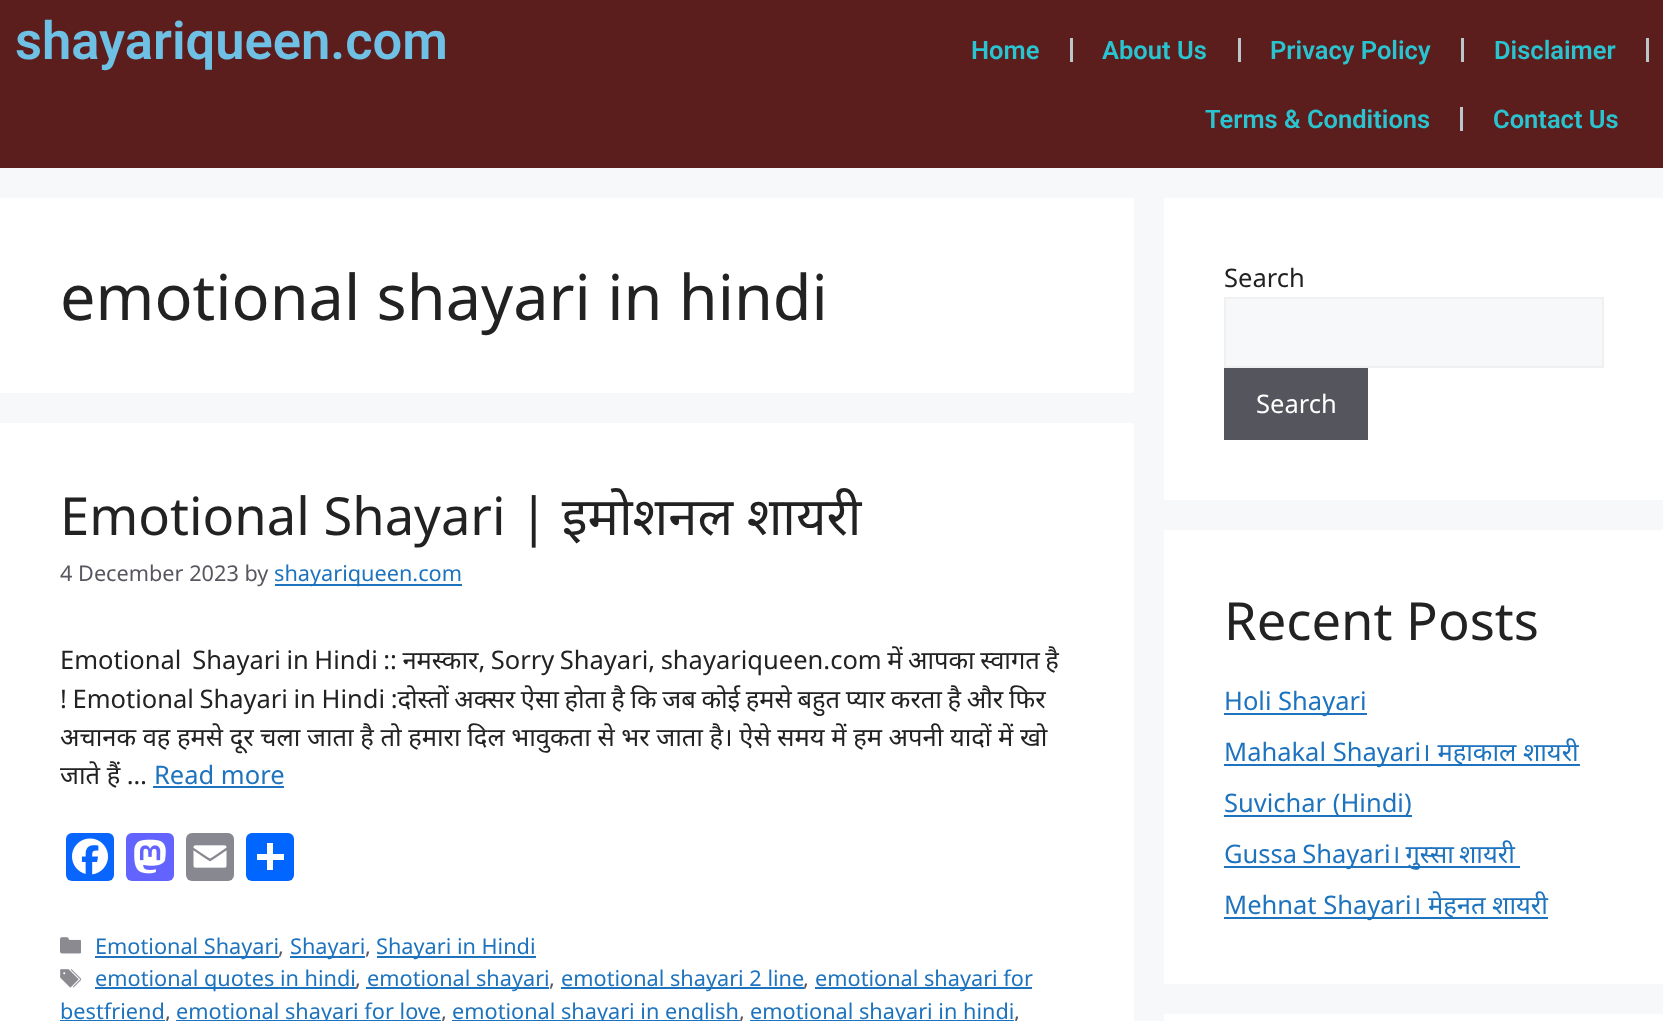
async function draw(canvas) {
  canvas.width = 1663;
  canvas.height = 1021;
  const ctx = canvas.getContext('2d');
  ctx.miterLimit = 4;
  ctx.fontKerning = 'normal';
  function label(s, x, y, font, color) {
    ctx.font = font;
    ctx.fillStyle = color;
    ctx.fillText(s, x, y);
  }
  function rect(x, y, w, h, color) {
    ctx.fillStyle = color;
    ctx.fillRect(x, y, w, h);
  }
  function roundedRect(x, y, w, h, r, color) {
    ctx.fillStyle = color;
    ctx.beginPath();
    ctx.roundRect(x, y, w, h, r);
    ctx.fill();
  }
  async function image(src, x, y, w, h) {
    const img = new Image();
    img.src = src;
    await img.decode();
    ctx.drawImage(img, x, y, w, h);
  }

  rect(0, 0, 1663, 1021, '#f7f8f9');
  rect(0, 0, 1663, 168, '#5c1d1d');
  label('shayariqueen.com', 15, 59, '600 52.5px Roboto', '#6ec1e4');
  label('Home', 971, 59, '600 25.5px Roboto', '#29c4d0');
  rect(1070, 38, 3, 24, '#bbc7ca');
  label('About Us', 1102, 59, '600 25.5px Roboto', '#29c4d0');
  rect(1238, 38, 3, 24, '#bbc7ca');
  label('Privacy Policy', 1270, 59, '600 25.5px Roboto', '#29c4d0');
  rect(1461, 38, 3, 24, '#bbc7ca');
  label('Disclaimer', 1494, 59, '600 25.5px Roboto', '#29c4d0');
  rect(1646, 38, 3, 24, '#bbc7ca');
  label('Terms & Conditions', 1205, 128, '600 25.5px Roboto', '#29c4d0');
  rect(1460, 107, 3, 24, '#bbc7ca');
  label('Contact Us', 1493, 128, '600 25.5px Roboto', '#29c4d0');
  rect(0, 198, 1134, 195, '#fff');
  label('emotional shayari in hindi', 60, 320, '63px Noto Sans', '#222');
  rect(0, 423, 1134, 598, '#fff');
  label('Emotional Shayari | इमोशनल शायरी', 60, 535, '52.5px Noto Sans', '#222');
  label('4 December 2023 by', 60, 581, '21.7px Noto Sans', '#575760');
  rect(275, 584, 187, 2, '#1e73be');
  label('shayariqueen.com', 274, 581, '21.7px Noto Sans', '#1e73be');
  ctx.wordSpacing = '-1.1px';
  label('Emotional  Shayari in Hindi :: नमस्कार, Sorry Shayari, shayariqueen.com में आपका स्वागत है', 60, 669, '25.5px Noto Sans', '#222');
  ctx.wordSpacing = '-1px';
  label('! Emotional Shayari in Hindi :दोस्तों अक्सर ऐसा होता है कि जब कोई हमसे बहुत प्यार करता है और फिर', 60, 708, '25.5px Noto Sans', '#222');
  ctx.wordSpacing = '0px';
  label('अचानक वह हमसे दूर चला जाता है तो हमारा दिल भावुकता से भर जाता है। ऐसे समय में हम अपनी यादों में खो', 60, 746, '25.5px Noto Sans', '#222');
  label('जाते हैं …', 60, 784, '25.5px Noto Sans', '#222');
  label('Read more', 154, 784, '25.5px Noto Sans', '#1e73be');
  rect(153, 786, 131, 2, '#1e73be');
  roundedRect(66, 833, 48, 48, 6, '#0866ff');
  await image('assets/img1.png', 72, 838, 36, 37);
  roundedRect(126, 833, 48, 48, 6, '#6364ff');
  await image('assets/img2.png', 134, 839, 32, 35);
  roundedRect(186, 833, 48, 48, 6, '#888990');
  await image('assets/img3.png', 193, 845, 34, 23);
  roundedRect(246, 833, 48, 48, 6, '#0166ff');
  rect(267, 843, 6, 27, '#fff');
  rect(257, 854, 27, 6, '#fff');
  await image('assets/img4.png', 60, 937, 21, 17);
  rect(95, 956, 184, 2, '#1e73be');
  label('Emotional Shayari', 95, 954, '21.7px Noto Sans', '#1e73be');
  label(',', 278, 954, '21.7px Noto Sans', '#575760');
  rect(290, 956, 75, 2, '#1e73be');
  label('Shayari', 290, 954, '21.7px Noto Sans', '#1e73be');
  label(',', 365, 954, '21.7px Noto Sans', '#575760');
  rect(377, 956, 159, 2, '#1e73be');
  label('Shayari in Hindi', 376, 954, '21.7px Noto Sans', '#1e73be');
  await image('assets/img5.png', 60, 969, 21, 19);
  rect(95, 987, 261, 2, '#1e73be');
  label('emotional quotes in hindi', 95, 986, '21.7px Noto Sans', '#1e73be');
  label(',', 355, 986, '21.7px Noto Sans', '#575760');
  rect(366, 987, 183, 2, '#1e73be');
  label('emotional shayari', 367, 986, '21.7px Noto Sans', '#1e73be');
  label(',', 549, 986, '21.7px Noto Sans', '#575760');
  rect(561, 987, 243, 2, '#1e73be');
  label('emotional shayari 2 line', 561, 986, '21.7px Noto Sans', '#1e73be');
  label(',', 803, 986, '21.7px Noto Sans', '#575760');
  rect(815, 987, 217, 2, '#1e73be');
  label('emotional shayari for', 815, 986, '21.7px Noto Sans', '#1e73be');
  label('bestfriend', 60, 1019, '21.7px Noto Sans', '#1e73be');
  rect(60, 1020, 105, 1, '#1e73be');
  label(',', 165, 1019, '21.7px Noto Sans', '#575760');
  rect(176, 1020, 265, 1, '#1e73be');
  label('emotional shayari for love', 176, 1019, '21.7px Noto Sans', '#1e73be');
  label(',', 441, 1019, '21.7px Noto Sans', '#575760');
  rect(452, 1020, 288, 1, '#1e73be');
  label('emotional shayari in english', 452, 1019, '21.7px Noto Sans', '#1e73be');
  label(',', 739, 1019, '21.7px Noto Sans', '#575760');
  rect(750, 1020, 264, 1, '#1e73be');
  label('emotional shayari in hindi', 750, 1019, '21.7px Noto Sans', '#1e73be');
  label(',', 1014, 1019, '21.7px Noto Sans', '#575760');
  rect(1164, 198, 499, 302, '#fff');
  label('Search', 1224, 287, '25.5px Noto Sans', '#222');
  ctx.fillStyle = '#f7f8f9';
  ctx.beginPath();
  ctx.rect(1225, 298, 378, 69);
  ctx.fill();
  ctx.strokeStyle = '#f0f0f0';
  ctx.lineWidth = 2;
  ctx.stroke();
  rect(1224, 368, 144, 72, '#55555e');
  label('Search', 1256, 413, '25.5px Noto Sans', '#fff');
  rect(1164, 530, 499, 454, '#fff');
  label('Recent Posts', 1224, 640, '52.5px Noto Sans', '#222');
  rect(1224, 713, 143, 2, '#1e73be');
  label('Holi Shayari', 1224, 710, '25.5px Noto Sans', '#1e73be');
  rect(1224, 764, 356, 2, '#1e73be');
  label('Mahakal Shayari। महाकाल शायरी', 1224, 761, '25.5px Noto Sans', '#1e73be');
  rect(1224, 815, 188, 2, '#1e73be');
  label('Suvichar (Hindi)', 1224, 812, '25.5px Noto Sans', '#1e73be');
  rect(1224, 866, 296, 2, '#1e73be');
  ctx.wordSpacing = '-1.5px';
  label('Gussa Shayari। गुस्सा शायरी', 1224, 863, '25.5px Noto Sans', '#1e73be');
  rect(1224, 917, 324, 2, '#1e73be');
  ctx.wordSpacing = '0px';
  label('Mehnat Shayari। मेहनत शायरी', 1224, 914, '25.5px Noto Sans', '#1e73be');
  rect(1164, 1014, 499, 7, '#fff');
}

draw(document.querySelector('canvas'));
